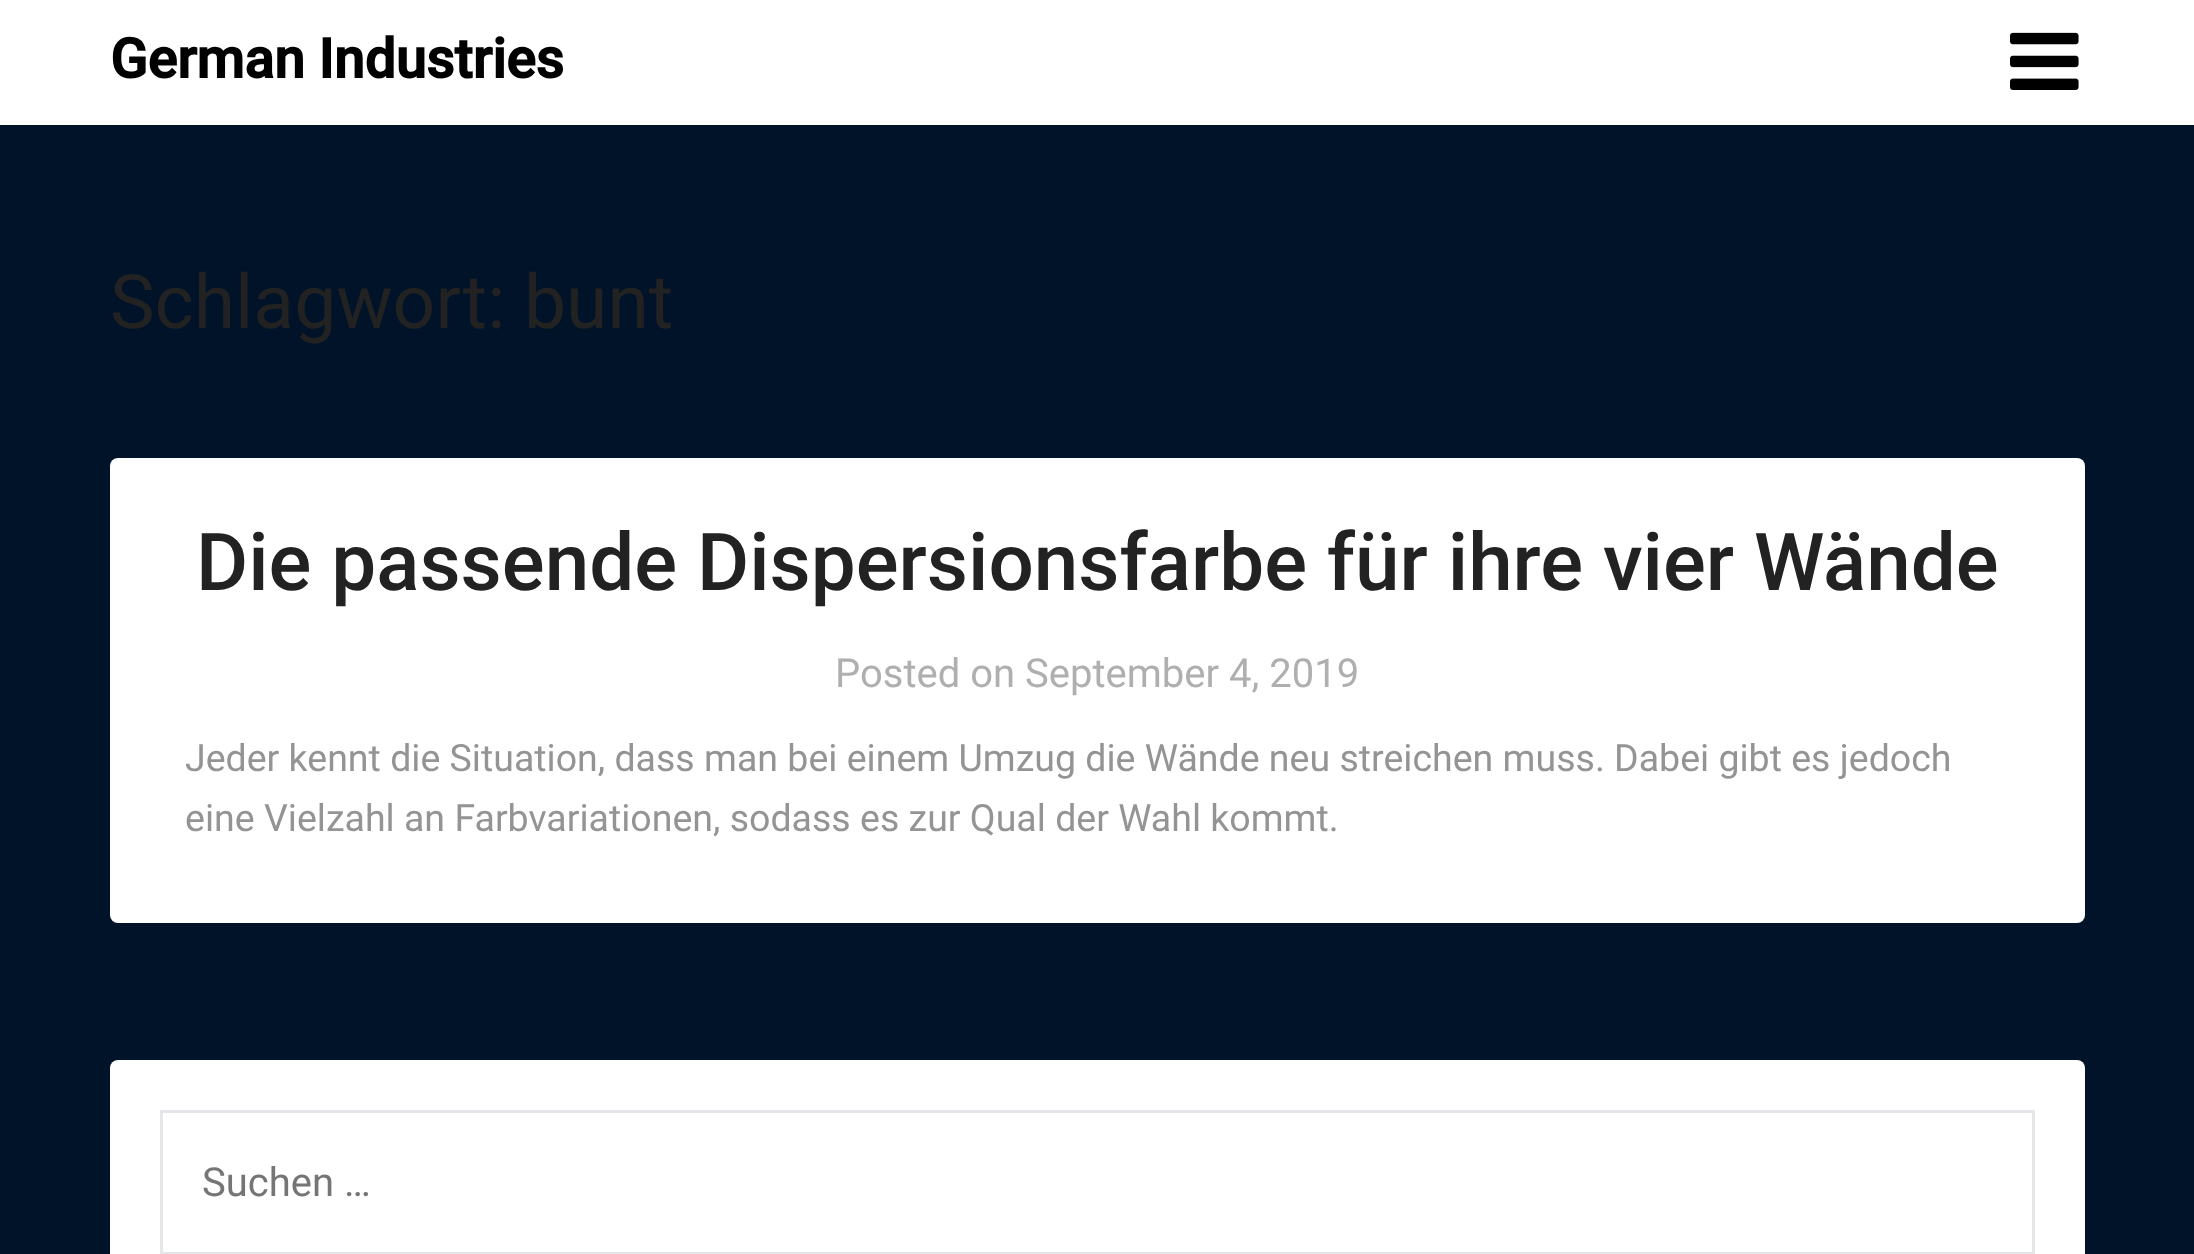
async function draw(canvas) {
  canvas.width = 2194;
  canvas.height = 1254;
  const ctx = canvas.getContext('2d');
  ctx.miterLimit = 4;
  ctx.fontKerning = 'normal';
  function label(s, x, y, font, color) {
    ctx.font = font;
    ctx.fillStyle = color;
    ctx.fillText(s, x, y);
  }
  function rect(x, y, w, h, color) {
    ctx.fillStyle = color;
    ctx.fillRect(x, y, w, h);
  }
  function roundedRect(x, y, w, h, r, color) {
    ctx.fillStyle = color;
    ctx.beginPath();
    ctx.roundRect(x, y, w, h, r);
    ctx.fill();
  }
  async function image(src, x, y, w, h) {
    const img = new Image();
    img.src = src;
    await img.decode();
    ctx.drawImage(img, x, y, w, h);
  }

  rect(0, 0, 2194, 1254, '#001328');
  rect(0, 0, 2194, 125, '#fff');
  label('German Industries', 110, 78, 'bold 55px Roboto', '#000');
  await image('assets/img1.png', 2010, 32, 69, 58);
  label('Schlagwort: bunt', 110, 328, '75px Roboto', '#222');
  roundedRect(110, 458, 1975, 465, 8, '#fff');
  label('Die passende Dispersionsfarbe für ihre vier Wände', 196, 590, '500 80px Roboto', '#222');
  label('Posted on September 4, 2019', 835, 687, '40px Roboto', '#afafaf');
  label('Jeder kennt die Situation, dass man bei einem Umzug die Wände neu streichen muss. Dabei gibt es jedoch', 185, 771, '37.5px Roboto', '#949494');
  label('eine Vielzahl an Farbvariationen, sodass es zur Qual der Wahl kommt.', 185, 831, '37.5px Roboto', '#949494');
  roundedRect(110, 1060, 1975, 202, 8, '#fff');
  ctx.strokeStyle = '#e5e6e9';
  ctx.lineWidth = 3;
  ctx.strokeRect(161.5, 1111.5, 1872, 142);
  label('Suchen …', 202, 1196, '40px Roboto', '#757575');
}

draw(document.querySelector('canvas'));
